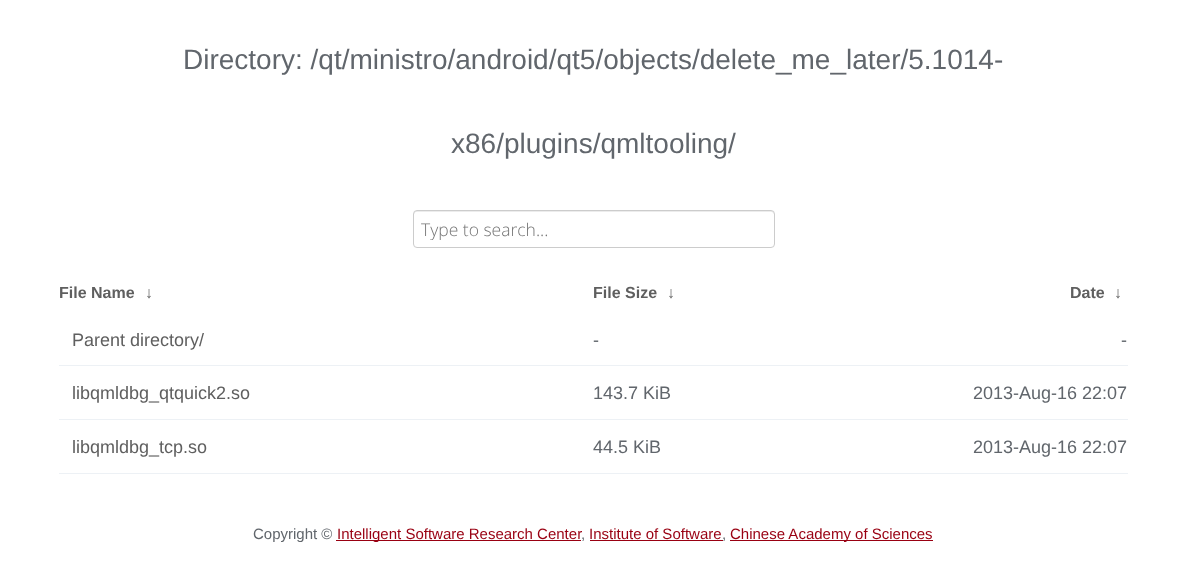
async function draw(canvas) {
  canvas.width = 1186;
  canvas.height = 564;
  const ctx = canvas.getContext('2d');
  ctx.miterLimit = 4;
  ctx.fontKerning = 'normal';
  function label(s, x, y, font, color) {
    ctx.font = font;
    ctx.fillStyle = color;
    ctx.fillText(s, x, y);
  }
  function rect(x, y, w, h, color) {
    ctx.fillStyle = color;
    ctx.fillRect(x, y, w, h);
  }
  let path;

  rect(0, 0, 1186, 564, '#fff');
  label('Directory: /qt/ministro/android/qt5/objects/delete_me_later/5.1014-', 183, 69, '28px Liberation Sans', '#61666c');
  label('x86/plugins/qmltooling/', 451, 153, '28px Liberation Sans', '#61666c');
  ctx.fillStyle = '#ececec';
  path = new Path2D('M416 212H771C773 212 774 214 774 215C774 213 774 211 772 211H416C414 211 414 213 414 215C414 214 415 212 416 212Z');
  ctx.fill(path);
  ctx.beginPath();
  ctx.roundRect(413.5, 210.5, 361, 37, 3.5);
  ctx.strokeStyle = '#ccc';
  ctx.stroke();
  ctx.save();
  ctx.beginPath();
  ctx.rect(421, 216, 313, 24);
  ctx.clip();
  label('Type to search...', 421, 236, '300 17.5px Open Sans', '#757575');
  ctx.restore();
  label('File Name', 59, 298, 'bold 16px Liberation Sans', '#5f5f5f');
  label('↓', 145, 298, 'bold 16px Liberation Sans', '#5f5f5f');
  label('File Size', 593, 298, 'bold 16px Liberation Sans', '#5f5f5f');
  label('↓', 667, 298, 'bold 16px Liberation Sans', '#5f5f5f');
  label('Date', 1070, 298, 'bold 16px Liberation Sans', '#5f5f5f');
  label('↓', 1114, 298, 'bold 16px Liberation Sans', '#5f5f5f');
  label('Parent directory/', 72, 346, '18px Liberation Sans', '#5f5f5f');
  label('-', 593, 346, '18px Liberation Sans', '#61666c');
  rect(59, 365, 1069, 1, '#edf1f5');
  label('-', 1121, 346, '18px Liberation Sans', '#61666c');
  label('libqmldbg_qtquick2.so', 72, 399, '18px Liberation Sans', '#5f5f5f');
  label('143.7 KiB', 593, 399, '18px Liberation Sans', '#61666c');
  rect(59, 419, 1069, 1, '#edf1f5');
  label('2013-Aug-16 22:07', 973, 399, '18px Liberation Sans', '#61666c');
  label('libqmldbg_tcp.so', 72, 453, '18px Liberation Sans', '#5f5f5f');
  label('44.5 KiB', 593, 453, '18px Liberation Sans', '#61666c');
  rect(59, 473, 1069, 1, '#edf1f5');
  label('2013-Aug-16 22:07', 973, 453, '18px Liberation Sans', '#61666c');
  label('Copyright ©', 253, 539, '15px Liberation Sans', '#61666c');
  rect(336, 540, 245, 1, '#990012');
  label('Intelligent Software Research Center', 337, 539, '15px Liberation Sans', '#990012');
  label(',', 581, 539, '15px Liberation Sans', '#61666c');
  label('Institute of Software', 589, 539, '15px Liberation Sans', '#990012');
  rect(590, 540, 133, 1, '#990012');
  label(',', 722, 539, '15px Liberation Sans', '#61666c');
  rect(730, 540, 203, 1, '#990012');
  label('Chinese Academy of Sciences', 730, 539, '15px Liberation Sans', '#990012');
}

draw(document.querySelector('canvas'));
